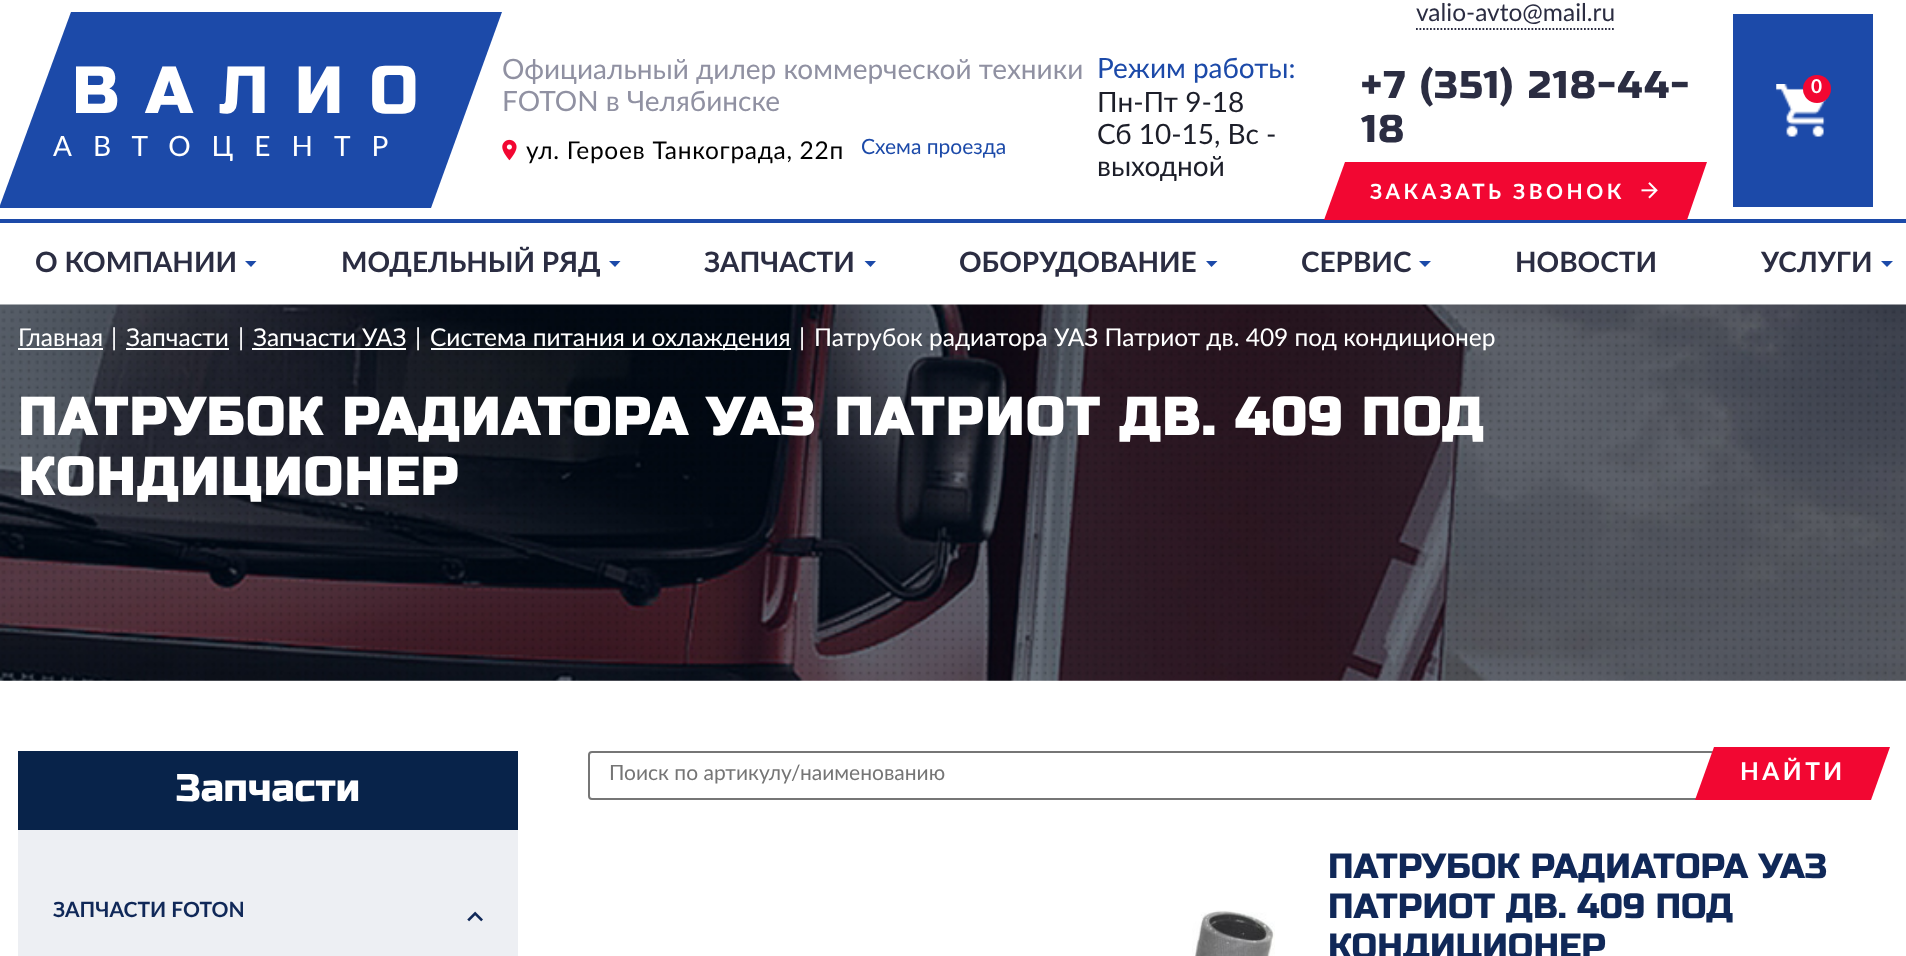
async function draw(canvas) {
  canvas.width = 1906;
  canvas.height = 956;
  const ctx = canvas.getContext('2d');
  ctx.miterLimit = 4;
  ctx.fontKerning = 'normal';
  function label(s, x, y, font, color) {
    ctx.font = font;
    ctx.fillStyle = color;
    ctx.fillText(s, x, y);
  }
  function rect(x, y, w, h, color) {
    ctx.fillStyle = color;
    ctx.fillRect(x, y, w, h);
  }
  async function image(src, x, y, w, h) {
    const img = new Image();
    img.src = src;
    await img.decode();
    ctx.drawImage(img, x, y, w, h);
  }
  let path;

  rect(0, 0, 1906, 956, '#fff');
  ctx.fillStyle = '#1c4aa9';
  path = new Path2D('M71 12H502L431 208H-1Z');
  ctx.fill(path);
  ctx.letterSpacing = '26.25px';
  label('ВАЛИО', 72, 113, '66.5px Russo One', '#fff');
  ctx.letterSpacing = '21px';
  label('АВТОЦЕНТР', 53, 156, '28px Lato', '#fff');
  ctx.letterSpacing = '0px';
  label('Официальный дилер коммерческой техники', 502, 79, '28px Lato', '#9091a2');
  label('FOTON в Челябинске', 502, 111, '28px Lato', '#9091a2');
  await image('assets/img1.png', 502, 139, 15, 22);
  ctx.letterSpacing = '0.7px';
  label('ул. Героев Танкограда, 22п', 526, 159, '24.5px Lato', '#000');
  ctx.letterSpacing = '0px';
  label('Схема проезда', 861, 154, '21px Lato', '#1c4aa9');
  label('Режим работы:', 1097, 78, '28px Lato', '#1c4aa9');
  label('Пн-Пт 9-18', 1097, 112, '28px Lato', '#1c1e29');
  label('Сб 10-15, Вс -', 1097, 144, '28px Lato', '#1c1e29');
  label('выходной', 1097, 176, '28px Lato', '#1c1e29');
  path = new Path2D('M1416 29H1615');
  ctx.strokeStyle = '#2b2d42';
  ctx.lineWidth = 1.8;
  ctx.setLineDash([1.75, 1.75]);
  ctx.stroke(path);
  label('valio-avto@mail.ru', 1416, 21, '24.5px Lato', '#2b2d42');
  ctx.letterSpacing = '1.75px';
  label('+7 (351) 218-44-', 1361, 98, '38.5px Russo One', '#2b2d42');
  label('18', 1361, 142, '38.5px Russo One', '#2b2d42');
  rect(0, 219, 1906, 4, '#1c4aa9');
  ctx.fillStyle = '#f20732';
  path = new Path2D('M1345 162H1707L1687 220H1324Z');
  ctx.fill(path);
  ctx.letterSpacing = '3.5px';
  label('ЗАКАЗАТЬ ЗВОНОК', 1370, 199, 'bold 21px Lato', '#fff');
  await image('assets/img2.png', 1641, 182, 17, 17);
  rect(1733, 14, 140, 193, '#1c4aa9');
  await image('assets/img3.png', 1776, 84, 53, 53);
  ctx.fillStyle = '#f20732';
  ctx.beginPath();
  ctx.arc(1817, 89, 14, 0, 2 * Math.PI);
  ctx.fill();
  ctx.letterSpacing = '0px';
  label('0', 1811, 93, 'bold 19px Lato', '#fff');
  label('О КОМПАНИИ', 35, 272, 'bold 28px Lato', '#2b2d42');
  ctx.fillStyle = '#1c4aa9';
  path = new Path2D('M245 261H256.5L251 267Z');
  ctx.fill(path);
  label('МОДЕЛЬНЫЙ РЯД', 341, 272, 'bold 28px Lato', '#2b2d42');
  ctx.fillStyle = '#1c4aa9';
  path = new Path2D('M609 261H620.5L615 267Z');
  ctx.fill(path);
  label('ЗАПЧАСТИ', 704, 272, 'bold 28px Lato', '#2b2d42');
  ctx.fillStyle = '#1c4aa9';
  path = new Path2D('M864.5 261H876L870.5 267Z');
  ctx.fill(path);
  label('ОБОРУДОВАНИЕ', 959, 272, 'bold 28px Lato', '#2b2d42');
  ctx.fillStyle = '#1c4aa9';
  path = new Path2D('M1206 261H1217.5L1211.5 267Z');
  ctx.fill(path);
  label('СЕРВИС', 1301, 272, 'bold 28px Lato', '#2b2d42');
  ctx.fillStyle = '#1c4aa9';
  path = new Path2D('M1419 261H1431L1425 267Z');
  ctx.fill(path);
  label('НОВОСТИ', 1515, 272, 'bold 28px Lato', '#2b2d42');
  label('УСЛУГИ', 1761, 272, 'bold 28px Lato', '#2b2d42');
  ctx.fillStyle = '#1c4aa9';
  path = new Path2D('M1881 261H1893L1887 267Z');
  ctx.fill(path);
  await image('assets/img4.png', 0, 304, 1906, 377);
  label('Главная', 18, 346, '24.5px Lato', '#fff');
  rect(18, 348, 85, 2, '#fff');
  label('|', 111, 346, '24.5px Lato', '#fff');
  label('Запчасти', 126, 346, '24.5px Lato', '#fff');
  rect(126, 348, 103, 2, '#fff');
  label('|', 238, 346, '24.5px Lato', '#fff');
  label('Запчасти УАЗ', 253, 346, '24.5px Lato', '#fff');
  rect(252, 348, 154, 2, '#fff');
  label('|', 415, 346, '24.5px Lato', '#fff');
  rect(431, 348, 360, 2, '#fff');
  label('Система питания и охлаждения', 430, 346, '24.5px Lato', '#fff');
  label('|', 799, 346, '24.5px Lato', '#fff');
  label('Патрубок радиатора УАЗ Патриот дв. 409 под кондиционер', 814, 346, '24.5px Lato', '#fff');
  ctx.letterSpacing = '2.25px';
  label('ПАТРУБОК РАДИАТОРА УАЗ ПАТРИОТ ДВ. 409 ПОД', 18, 435, 'bold 52.5px Russo One', '#fff');
  label('КОНДИЦИОНЕР', 18, 495, 'bold 52.5px Russo One', '#fff');
  rect(18, 830, 500, 126, '#edeff3');
  rect(18, 751, 500, 79, '#08234a');
  ctx.letterSpacing = '0px';
  label('Запчасти', 176, 801, '38.5px Russo One', '#fff');
  label('ЗАПЧАСТИ FOTON', 53, 917, 'bold 21px Lato', '#102858');
  await image('assets/img5.png', 467, 911, 16, 11);
  ctx.beginPath();
  ctx.roundRect(589, 752, 1125, 47, 3);
  ctx.strokeStyle = '#767676';
  ctx.lineWidth = 2;
  ctx.setLineDash([]);
  ctx.stroke();
  label('Поиск по артикулу/наименованию', 609, 780, '21px Lato', '#757575');
  ctx.fillStyle = '#f20732';
  path = new Path2D('M1714 747H1890L1871 800H1695Z');
  ctx.fill(path);
  ctx.letterSpacing = '3.5px';
  label('НАЙТИ', 1740, 780, 'bold 24.5px Lato', '#fff');
  await image('assets/img6.png', 1192, 910, 83, 46);
  ctx.letterSpacing = '0px';
  label('ПАТРУБОК РАДИАТОРА УАЗ', 1328, 878, '35px Russo One', '#102858');
  label('ПАТРИОТ ДВ. 409 ПОД', 1328, 918, '35px Russo One', '#102858');
  label('КОНДИЦИОНЕР', 1328, 958, '35px Russo One', '#102858');
}

draw(document.querySelector('canvas'));
